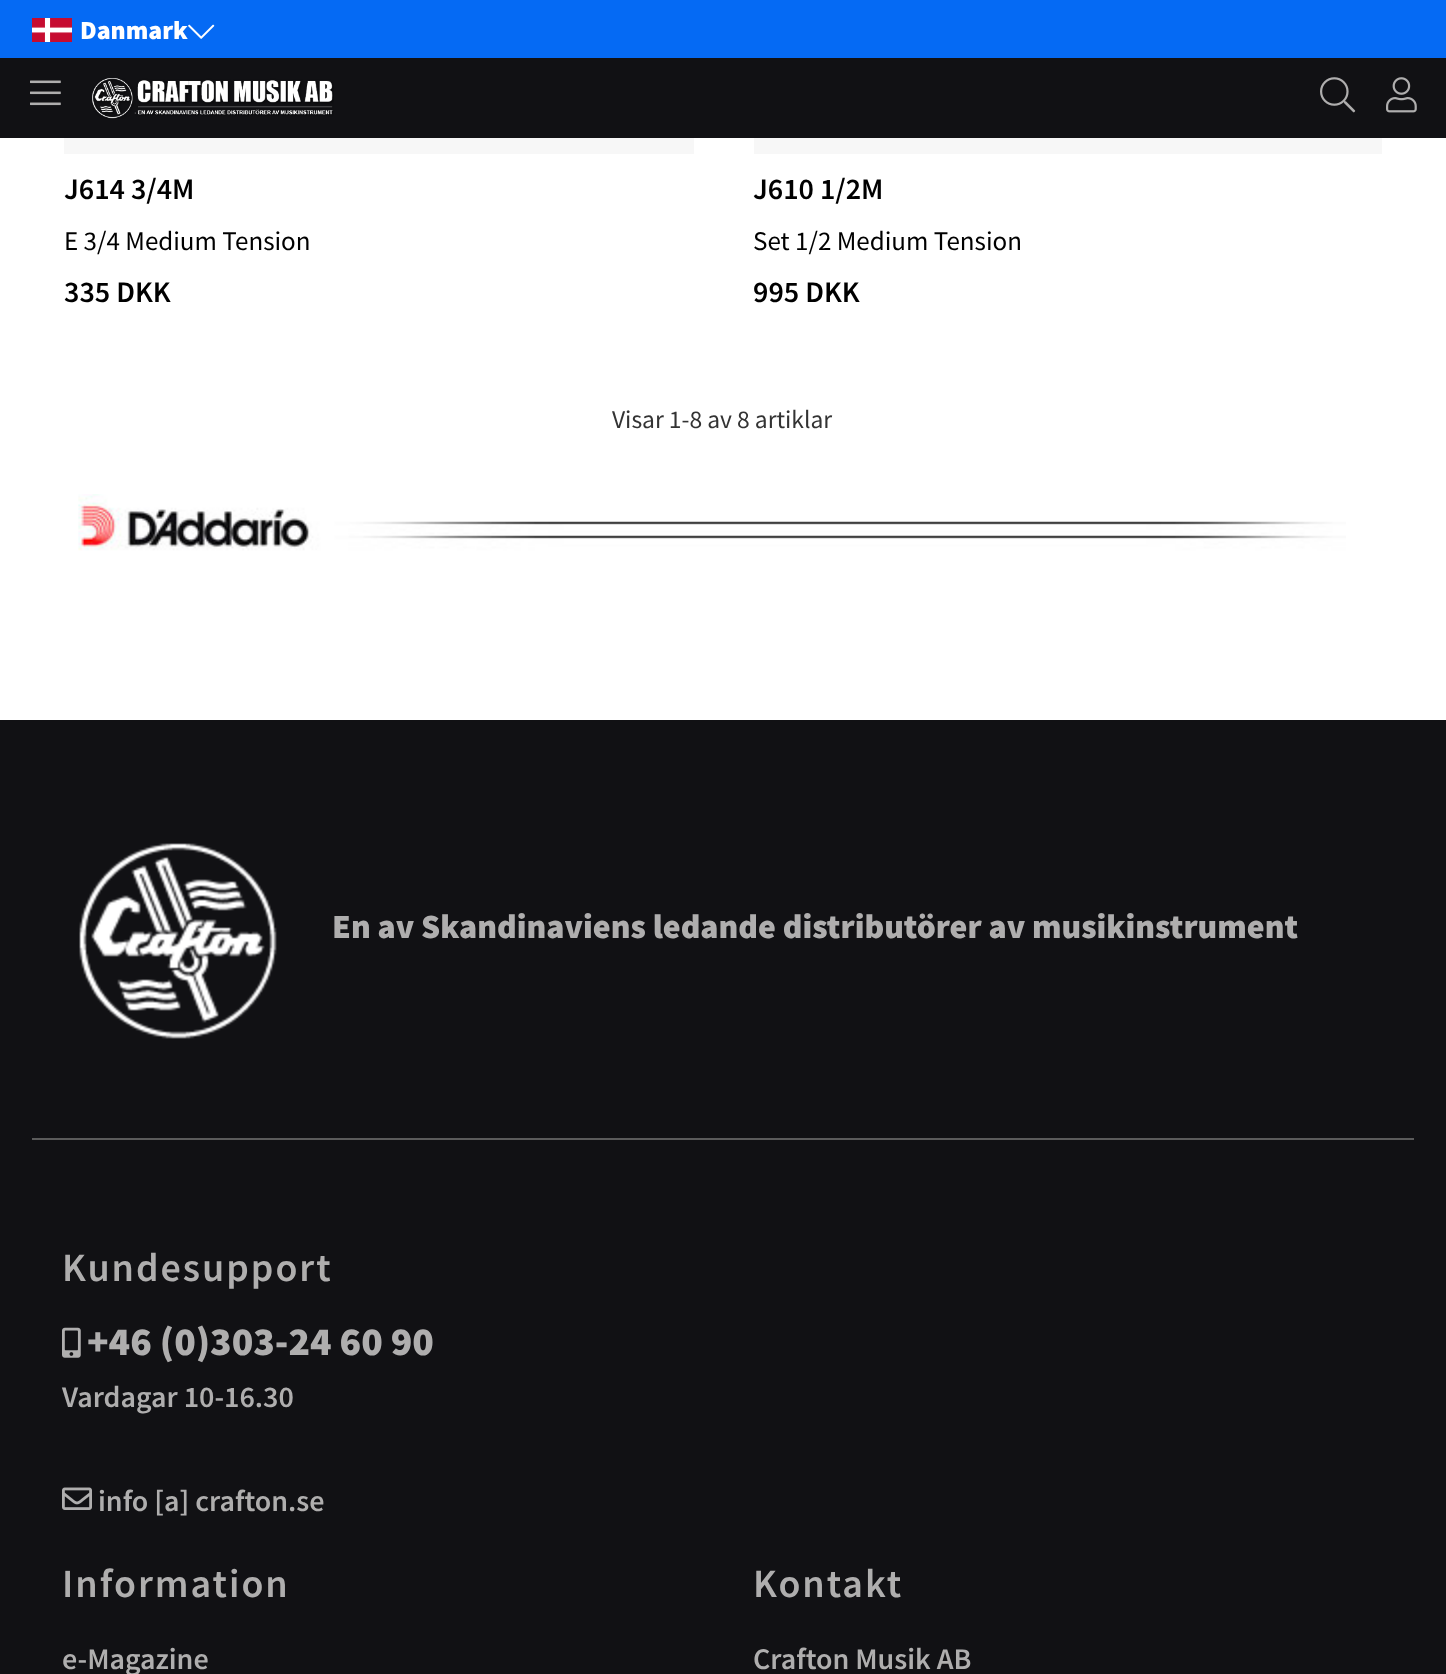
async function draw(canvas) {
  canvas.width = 1446;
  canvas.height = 1674;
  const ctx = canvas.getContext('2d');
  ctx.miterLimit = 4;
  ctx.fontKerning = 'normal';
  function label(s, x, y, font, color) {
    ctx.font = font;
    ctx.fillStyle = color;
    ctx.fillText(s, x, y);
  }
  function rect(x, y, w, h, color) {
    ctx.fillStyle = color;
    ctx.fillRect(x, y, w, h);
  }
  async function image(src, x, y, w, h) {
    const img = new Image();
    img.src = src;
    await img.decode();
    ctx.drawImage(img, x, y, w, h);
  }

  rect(0, 0, 1446, 1674, '#fff');
  rect(0, 58, 1446, 80, '#111114');
  rect(0, 0, 1446, 58, '#056af4');
  await image('assets/img1.png', 32, 18, 40, 24);
  label('Danmark', 80, 39, '900 26px Source Sans Pro', '#fff');
  await image('assets/img2.png', 188, 24, 27, 15);
  await image('assets/img3.png', 30, 80, 31, 26);
  await image('assets/img4.png', 92, 78, 242, 41);
  await image('assets/img5.png', 1320, 77, 36, 36);
  await image('assets/img6.png', 1386, 77, 31, 36);
  rect(64, 138, 630, 16, '#f7f7f7');
  label('J614 3/4M', 64, 199, '600 30px Source Sans Pro', '#000');
  label('E 3/4 Medium Tension', 64, 250, '27px Source Sans Pro', '#000');
  label('335 DKK', 64, 302, '600 30px Source Sans Pro', '#000');
  rect(754, 138, 628, 16, '#f7f7f7');
  label('J610 1/2M', 753, 199, '600 30px Source Sans Pro', '#000');
  label('Set 1/2 Medium Tension', 753, 250, '27px Source Sans Pro', '#000');
  label('995 DKK', 753, 302, '600 30px Source Sans Pro', '#000');
  label('Visar 1-8 av 8 artiklar', 612, 428, '25.5px Source Sans Pro', '#333');
  await image('assets/img7.png', 78, 494, 1268, 57);
  rect(0, 720, 1446, 954, '#111114');
  await image('assets/img8.png', 79, 843, 198, 196);
  label('En av Skandinaviens ledande distributörer av musikinstrument', 332, 938, '900 34px Source Sans Pro', '#afaeae');
  rect(32, 1138, 1382, 2, '#5b5b5b');
  ctx.letterSpacing = '2px';
  label('Kundesupport', 62, 1281, '600 40px Source Sans Pro', '#afaeae');
  await image('assets/img9.png', 62, 1327, 19, 31);
  ctx.letterSpacing = '0px';
  label('+46 (0)303-24 60 90', 87, 1355, '900 40px Source Sans Pro', '#afaeae');
  label('Vardagar 10-16.30', 62, 1407, '600 30px Source Sans Pro', '#afaeae');
  await image('assets/img10.png', 62, 1487, 30, 23);
  label('info [a] crafton.se', 98, 1511, '600 30px Source Sans Pro', '#afaeae');
  ctx.letterSpacing = '2px';
  label('Information', 62, 1597, '600 40px Source Sans Pro', '#afaeae');
  ctx.letterSpacing = '0px';
  label('e-Magazine', 62, 1669, '600 30px Source Sans Pro', '#afaeae');
  ctx.letterSpacing = '2px';
  label('Kontakt', 753, 1597, '600 40px Source Sans Pro', '#afaeae');
  ctx.letterSpacing = '0px';
  label('Crafton Musik AB', 753, 1669, '600 30px Source Sans Pro', '#afaeae');
}

draw(document.querySelector('canvas'));
